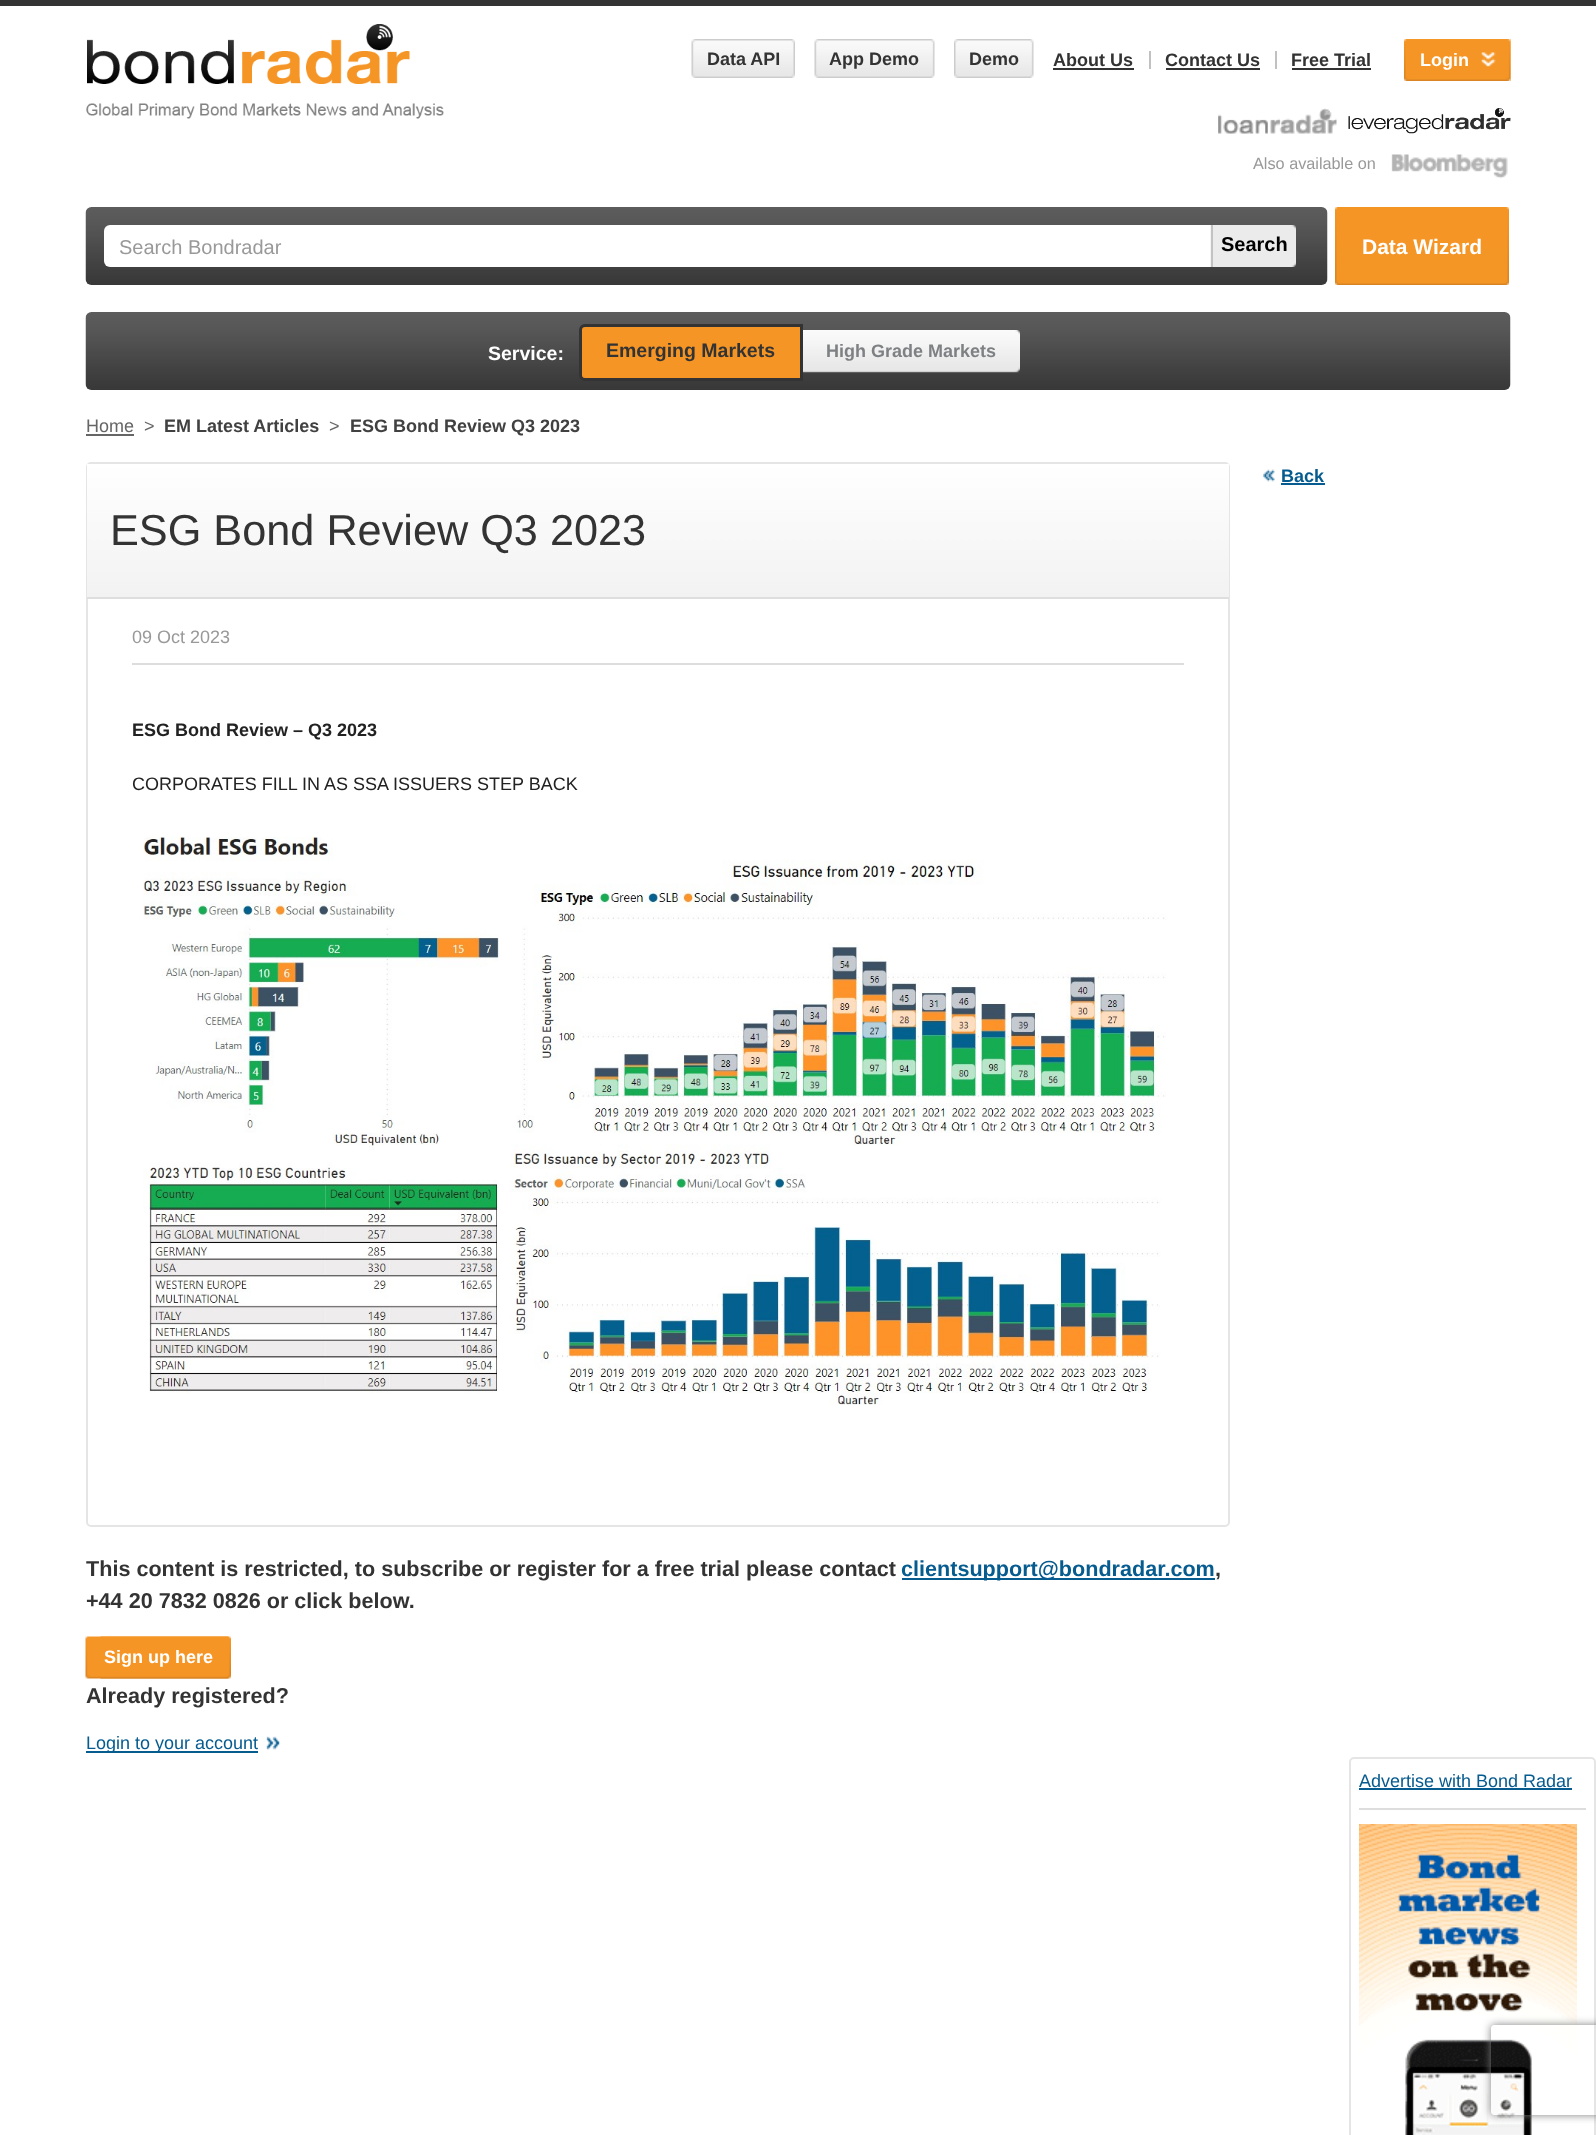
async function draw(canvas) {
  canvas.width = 1596;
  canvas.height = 2135;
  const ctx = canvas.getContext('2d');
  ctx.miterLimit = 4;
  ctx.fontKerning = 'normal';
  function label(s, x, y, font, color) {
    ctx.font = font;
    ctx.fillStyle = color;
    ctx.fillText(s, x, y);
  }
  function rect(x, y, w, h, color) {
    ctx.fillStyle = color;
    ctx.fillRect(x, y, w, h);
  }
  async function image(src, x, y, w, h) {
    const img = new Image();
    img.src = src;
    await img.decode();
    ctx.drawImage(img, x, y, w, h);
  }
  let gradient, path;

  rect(0, 0, 1596, 2135, '#fff');
  rect(0, 0, 1596, 6, '#333');
  await image('assets/img1.png', 86, 24, 358, 95);
  await image('assets/img2.png', 691, 39, 101, 39);
  await image('assets/img3.png', 791, 39, 4, 39);
  label('Data API', 707, 65, 'bold 18px Liberation Sans', '#333');
  await image('assets/img4.png', 814, 39, 118, 39);
  await image('assets/img5.png', 931, 39, 4, 39);
  label('App Demo', 829, 65, 'bold 18px Liberation Sans', '#333');
  await image('assets/img6.png', 954, 39, 77, 39);
  await image('assets/img7.png', 1030, 39, 4, 39);
  label('Demo', 969, 65, 'bold 18px Liberation Sans', '#333');
  label('About Us', 1053, 66, 'bold 18px Liberation Sans', '#333');
  rect(1053, 68, 81, 2, '#333');
  rect(1149, 51, 2, 18, '#c1c1c1');
  label('Contact Us', 1165, 66, 'bold 18px Liberation Sans', '#333');
  rect(1166, 68, 94, 2, '#333');
  rect(1275, 51, 2, 18, '#c1c1c1');
  label('Free Trial', 1291, 66, 'bold 18px Liberation Sans', '#333');
  rect(1292, 68, 79, 2, '#333');
  await image('assets/img8.png', 1404, 39, 107, 42);
  await image('assets/img9.png', 1481, 39, 30, 42);
  label('Login', 1420, 66, 'bold 18px Liberation Sans', '#fff');
  await image('assets/img10.png', 1218, 108, 119, 26);
  await image('assets/img11.png', 1348, 108, 163, 26);
  label('Also available on', 1253, 169, '16.25px Liberation Sans', '#999');
  await image('assets/img12.png', 1391, 154, 117, 25);
  await image('assets/img13.png', 85, 207, 1243, 78);
  ctx.fillStyle = '#fff';
  ctx.beginPath();
  ctx.roundRect(104, 225, 1107, 42, [6, 0, 0, 6]);
  ctx.fill();
  label('Search Bondradar', 119, 254, '20px Liberation Sans', '#999');
  await image('assets/img14.png', 1210, 225, 86, 42);
  rect(1211, 225, 2, 42, '#c2c2c2');
  label('Search', 1221, 251, 'bold 20px Liberation Sans', '#000');
  await image('assets/img15.png', 1335, 207, 174, 78);
  label('Data Wizard', 1362, 254, 'bold 21px Liberation Sans', '#fff');
  await image('assets/img16.png', 85, 312, 1426, 78);
  label('Service:', 488, 360, 'bold 19.5px Liberation Sans', '#fff');
  ctx.fillStyle = '#f59525';
  ctx.beginPath();
  ctx.roundRect(580.5, 325.5, 221, 54, [4.5, 0, 0, 4.5]);
  ctx.fill();
  ctx.strokeStyle = '#333';
  ctx.lineWidth = 3;
  ctx.stroke();
  label('Emerging Markets', 606, 357, 'bold 19.5px Liberation Sans', '#333');
  await image('assets/img17.png', 803, 330, 217, 43);
  label('High Grade Markets', 826, 357, 'bold 18px Liberation Sans', '#7e8183');
  label('Home', 86, 432, '18px Liberation Sans', '#666');
  rect(86, 434, 48, 2, '#666');
  label('>', 144, 432, '18px Liberation Sans', '#666');
  label('EM Latest Articles', 164, 432, 'bold 18px Liberation Sans', '#414141');
  label('>', 329, 432, '18px Liberation Sans', '#666');
  label('ESG Bond Review Q3 2023', 350, 432, 'bold 18px Liberation Sans', '#414141');
  await image('assets/img18.png', 1263, 469, 12, 13);
  label('Back', 1281, 482, 'bold 18px Liberation Sans', '#065b8f');
  rect(1281, 483, 44, 2, '#065b91');
  ctx.beginPath();
  ctx.roundRect(87, 463, 1142, 1063, 4);
  ctx.strokeStyle = '#e5e5e5';
  ctx.lineWidth = 2;
  ctx.stroke();
  gradient = ctx.createLinearGradient(658, 463, 658, 597);
  gradient.addColorStop(0, '#fff');
  gradient.addColorStop(1, '#f2f2f2');
  ctx.fillStyle = gradient;
  ctx.fillRect(87, 464, 1142, 133);
  rect(87, 597, 1142, 2, '#dedede');
  label('ESG Bond Review Q3 2023', 110, 545, '43.25px Liberation Sans', '#333');
  label('09 Oct 2023', 132, 643, '18px Liberation Sans', '#999');
  rect(132, 663, 1052, 2, '#ddd');
  label('ESG Bond Review – Q3 2023', 132, 736, 'bold 18px Liberation Sans', '#222');
  label('CORPORATES FILL IN AS SSA ISSUERS STEP BACK', 132, 790, '18px Liberation Sans', '#222');
  await image('assets/img19.png', 143, 836, 1023, 569);
  label('This content is restricted, to subscribe or register for a free trial please contact', 86, 1576, 'bold 21.6px Liberation Sans', '#333');
  rect(902, 1578, 313, 2, '#065b8f');
  label('clientsupport@bondradar.com', 901, 1576, 'bold 21.6px Liberation Sans', '#065b8f');
  label(',', 1215, 1576, 'bold 21.6px Liberation Sans', '#333');
  label('+44 20 7832 0826 or click below.', 86, 1608, 'bold 21.6px Liberation Sans', '#333');
  await image('assets/img20.png', 85, 1636, 143, 43);
  await image('assets/img21.png', 100, 1636, 131, 43);
  label('Sign up here', 104, 1663, 'bold 18px Liberation Sans', '#fff');
  label('Already registered?', 86, 1703, 'bold 21.6px Liberation Sans', '#333');
  rect(86, 1751, 172, 2, '#065b8f');
  label('Login to your account', 86, 1749, '18px Liberation Sans', '#065b8f');
  await image('assets/img22.png', 266, 1736, 14, 14);
  ctx.beginPath();
  ctx.roundRect(1350, 1758, 245, 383, 4);
  ctx.stroke();
  label('Advertise with Bond Radar', 1359, 1787, '18px Liberation Sans', '#065b8f');
  rect(1359, 1788, 213, 2, '#065b8f');
  rect(1359, 1808, 227, 2, '#ddd');
  await image('assets/img23.png', 1359, 1824, 218, 311);
  ctx.save();
  path = new Path2D('M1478 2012H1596V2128H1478ZM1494 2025H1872C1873.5 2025 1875 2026.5 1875 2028V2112C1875 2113.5 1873.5 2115 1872 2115H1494C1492.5 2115 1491 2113.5 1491 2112V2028C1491 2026.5 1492.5 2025 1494 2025Z');
  ctx.clip(path, 'evenodd');
  ctx.fillStyle = '#808080';
  ctx.filter = 'blur(4px)';
  ctx.beginPath();
  ctx.roundRect(1491, 2025, 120, 90, 3);
  ctx.fill();
  ctx.filter = 'none';
  ctx.restore();
}

draw(document.querySelector('canvas'));
